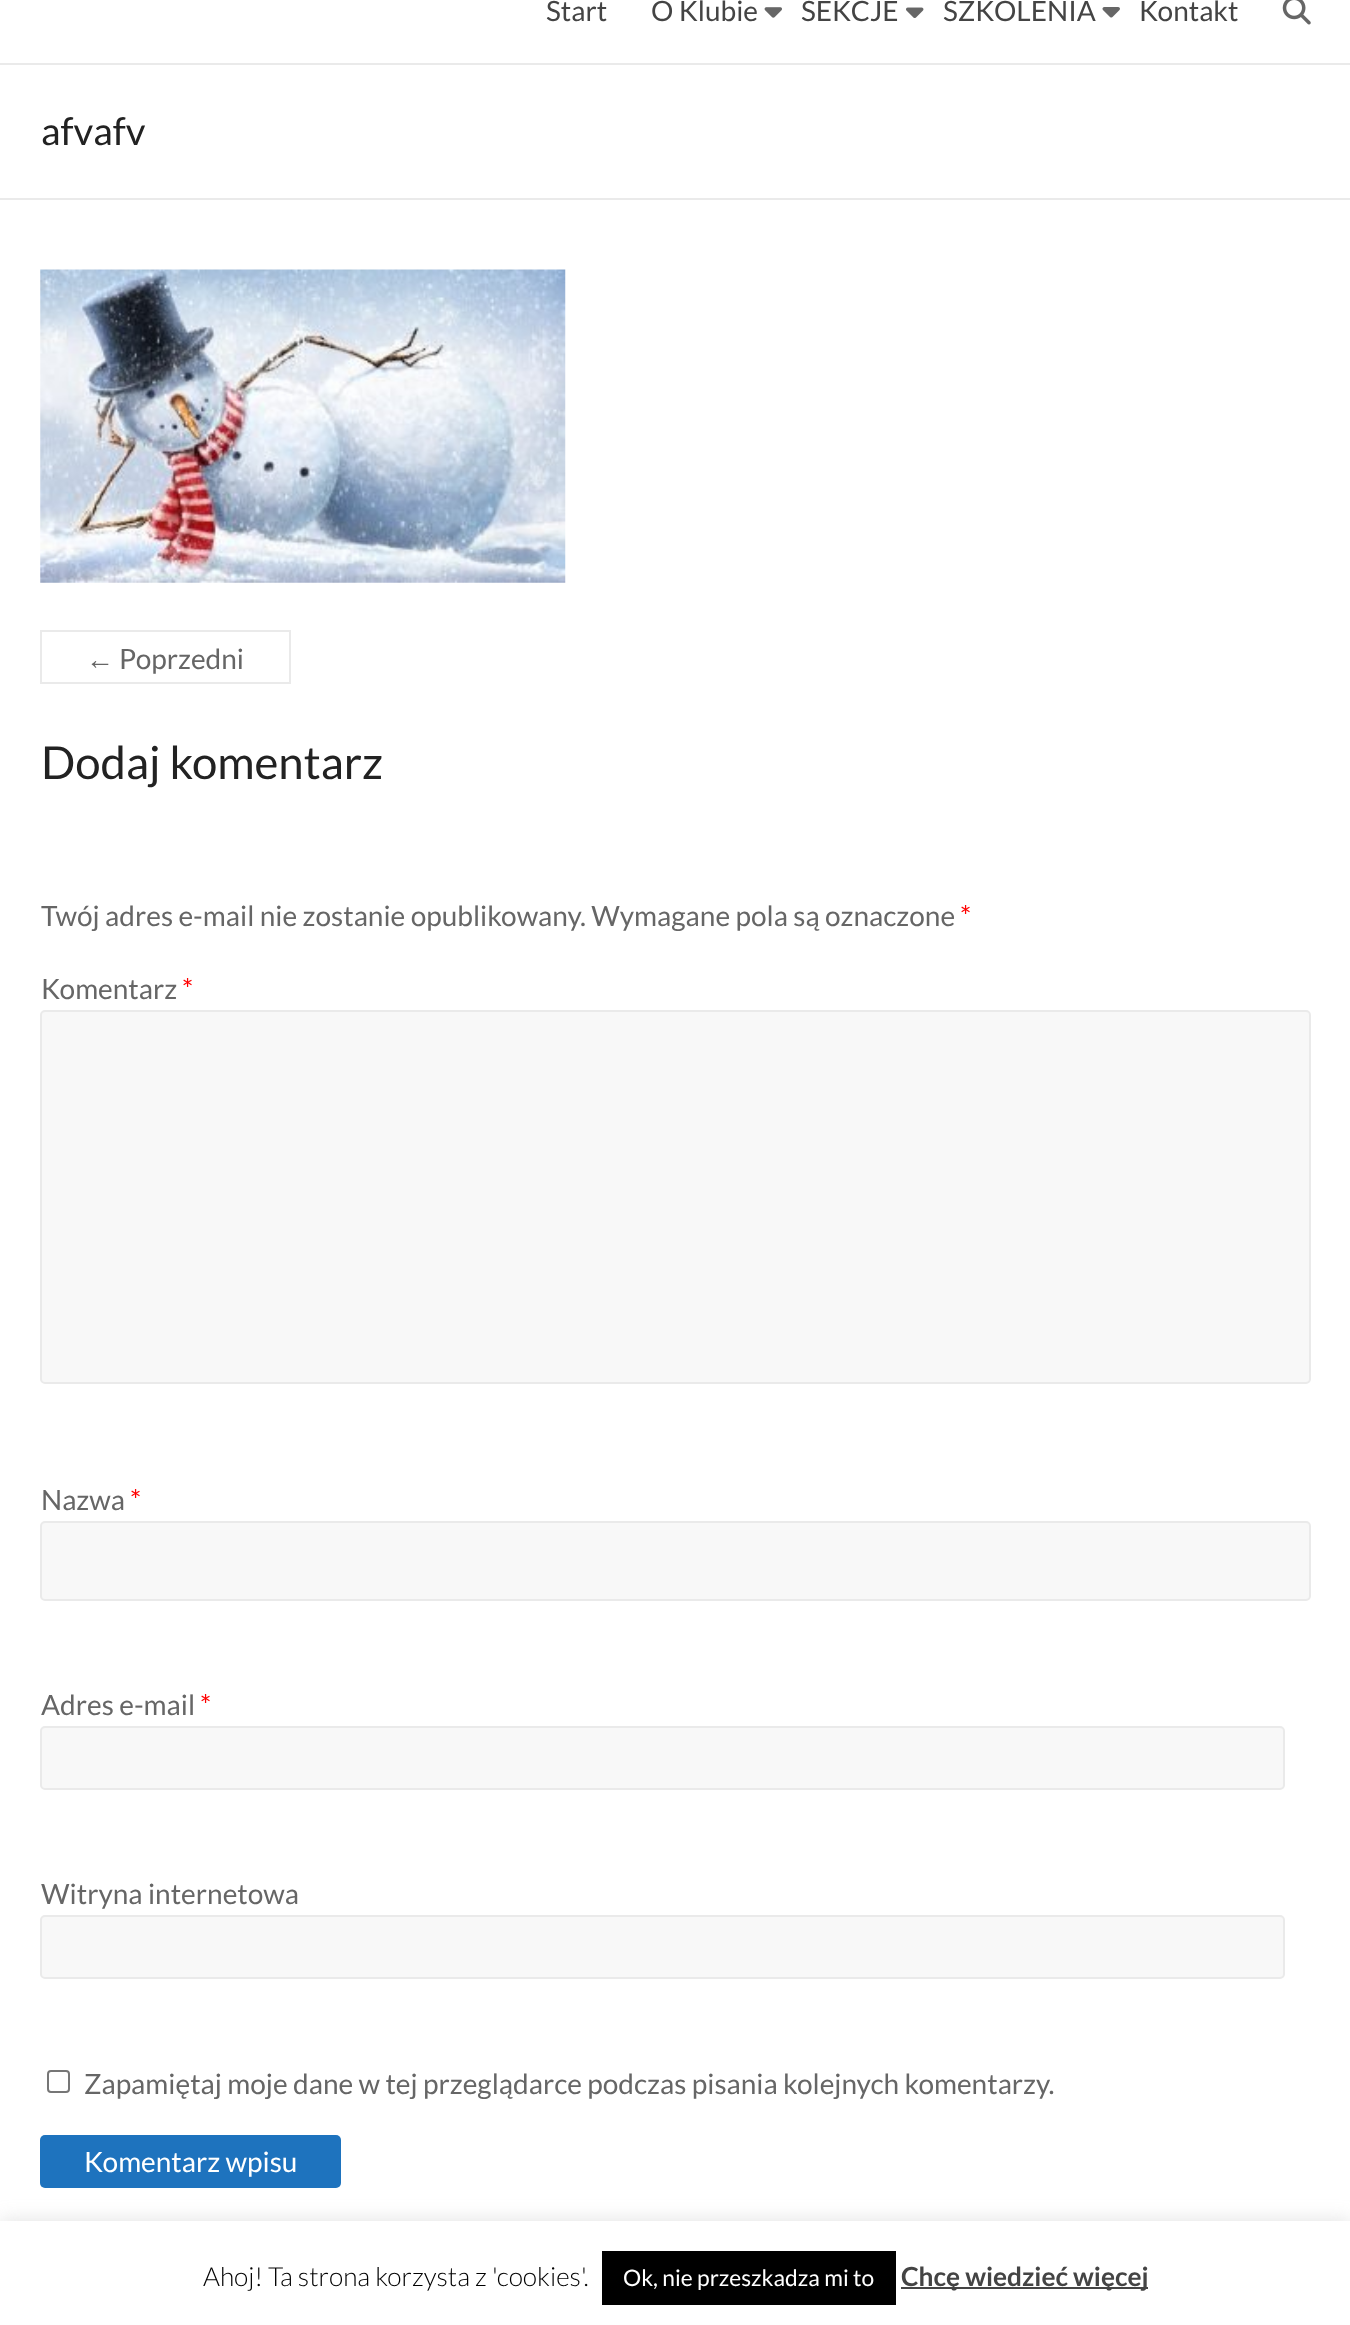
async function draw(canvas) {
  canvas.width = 1350;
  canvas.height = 2325;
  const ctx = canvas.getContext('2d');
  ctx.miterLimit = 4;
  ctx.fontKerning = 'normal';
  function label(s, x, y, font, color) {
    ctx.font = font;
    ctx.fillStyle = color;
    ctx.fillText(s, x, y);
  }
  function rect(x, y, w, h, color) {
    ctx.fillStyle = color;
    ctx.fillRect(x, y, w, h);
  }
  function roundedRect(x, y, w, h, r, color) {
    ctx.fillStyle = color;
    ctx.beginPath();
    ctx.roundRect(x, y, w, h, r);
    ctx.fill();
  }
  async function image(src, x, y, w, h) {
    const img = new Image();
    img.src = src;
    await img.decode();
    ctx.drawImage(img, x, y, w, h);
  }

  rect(0, 0, 1350, 2325, '#fff');
  rect(0, 63, 1350, 2, '#eaeaea');
  label('Start', 546, 21, '28px Lato', '#444');
  label('O Klubie', 651, 21, '28px Lato', '#444');
  await image('assets/img1.png', 764, 7, 18, 11);
  label('SEKCJE', 801, 21, '28px Lato', '#444');
  await image('assets/img2.png', 906, 7, 18, 11);
  label('SZKOLENIA', 943, 21, '28px Lato', '#444');
  await image('assets/img3.png', 1102, 7, 18, 11);
  label('Kontakt', 1139, 21, '28px Lato', '#444');
  await image('assets/img4.png', 1282, 0, 29, 25);
  rect(0, 198, 1350, 2, '#eaeaea');
  label('afvafv', 41, 145, '38.5px Lato', '#222');
  await image('assets/img5.png', 40, 269, 526, 314);
  ctx.strokeStyle = '#eaeaea';
  ctx.lineWidth = 2;
  ctx.strokeRect(41, 631, 249, 52);
  label('←', 86, 669, '28px Liberation Sans', '#666');
  label('Poprzedni', 119, 669, '28px Lato', '#666');
  label('Dodaj komentarz', 41, 779, '45.5px Lato', '#222');
  label('Twój adres e-mail nie zostanie opublikowany. Wymagane pola są oznaczone', 41, 926, '28px Lato', '#666');
  label('*', 960, 926, '28px Lato', '#f00');
  label('Komentarz', 41, 999, '28px Lato', '#666');
  label('*', 182, 999, '28px Lato', '#f00');
  ctx.fillStyle = '#f8f8f8';
  ctx.beginPath();
  ctx.roundRect(41, 1011, 1269, 372, 4);
  ctx.fill();
  ctx.stroke();
  label('Nazwa', 41, 1510, '28px Lato', '#666');
  label('*', 130, 1510, '28px Lato', '#f00');
  ctx.fillStyle = '#f8f8f8';
  ctx.beginPath();
  ctx.roundRect(41, 1522, 1269, 78, 4);
  ctx.fill();
  ctx.stroke();
  label('Adres e-mail', 41, 1715, '28px Lato', '#666');
  label('*', 200, 1715, '28px Lato', '#f00');
  ctx.fillStyle = '#f8f8f8';
  ctx.beginPath();
  ctx.roundRect(41, 1727, 1243, 62, 4);
  ctx.fill();
  ctx.stroke();
  label('Witryna internetowa', 41, 1904, '28px Lato', '#666');
  ctx.fillStyle = '#f8f8f8';
  ctx.beginPath();
  ctx.roundRect(41, 1916, 1243, 62, 4);
  ctx.fill();
  ctx.stroke();
  ctx.beginPath();
  ctx.roundRect(48, 2071, 21, 21, 3);
  ctx.strokeStyle = '#767676';
  ctx.stroke();
  label('Zapamiętaj moje dane w tej przeglądarce podczas pisania kolejnych komentarzy.', 84, 2094, '28px Lato', '#666');
  roundedRect(40, 2135, 301, 53, 5, '#1e73be');
  label('Komentarz wpisu', 84, 2172, '28px Lato', '#fff');
  ctx.fillStyle = '#acabab4d';
  ctx.filter = 'blur(9px)';
  ctx.beginPath();
  ctx.rect(0, 2219, 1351, 105);
  ctx.fill();
  ctx.filter = 'none';
  rect(0, 2221, 1350, 104, '#fff');
  label('Ahoj! Ta strona korzysta z \'cookies\'.', 203, 2286, '300 26.25px Lato', '#000');
  rect(602, 2251, 294, 54, '#000');
  label('Ok, nie przeszkadza mi to', 623, 2286, '22.75px Lato', '#fff');
  rect(901, 2287, 247, 2, '#444');
  label('Chcę wiedzieć więcej', 901, 2286, 'bold 26.25px Lato', '#444');
}

draw(document.querySelector('canvas'));
